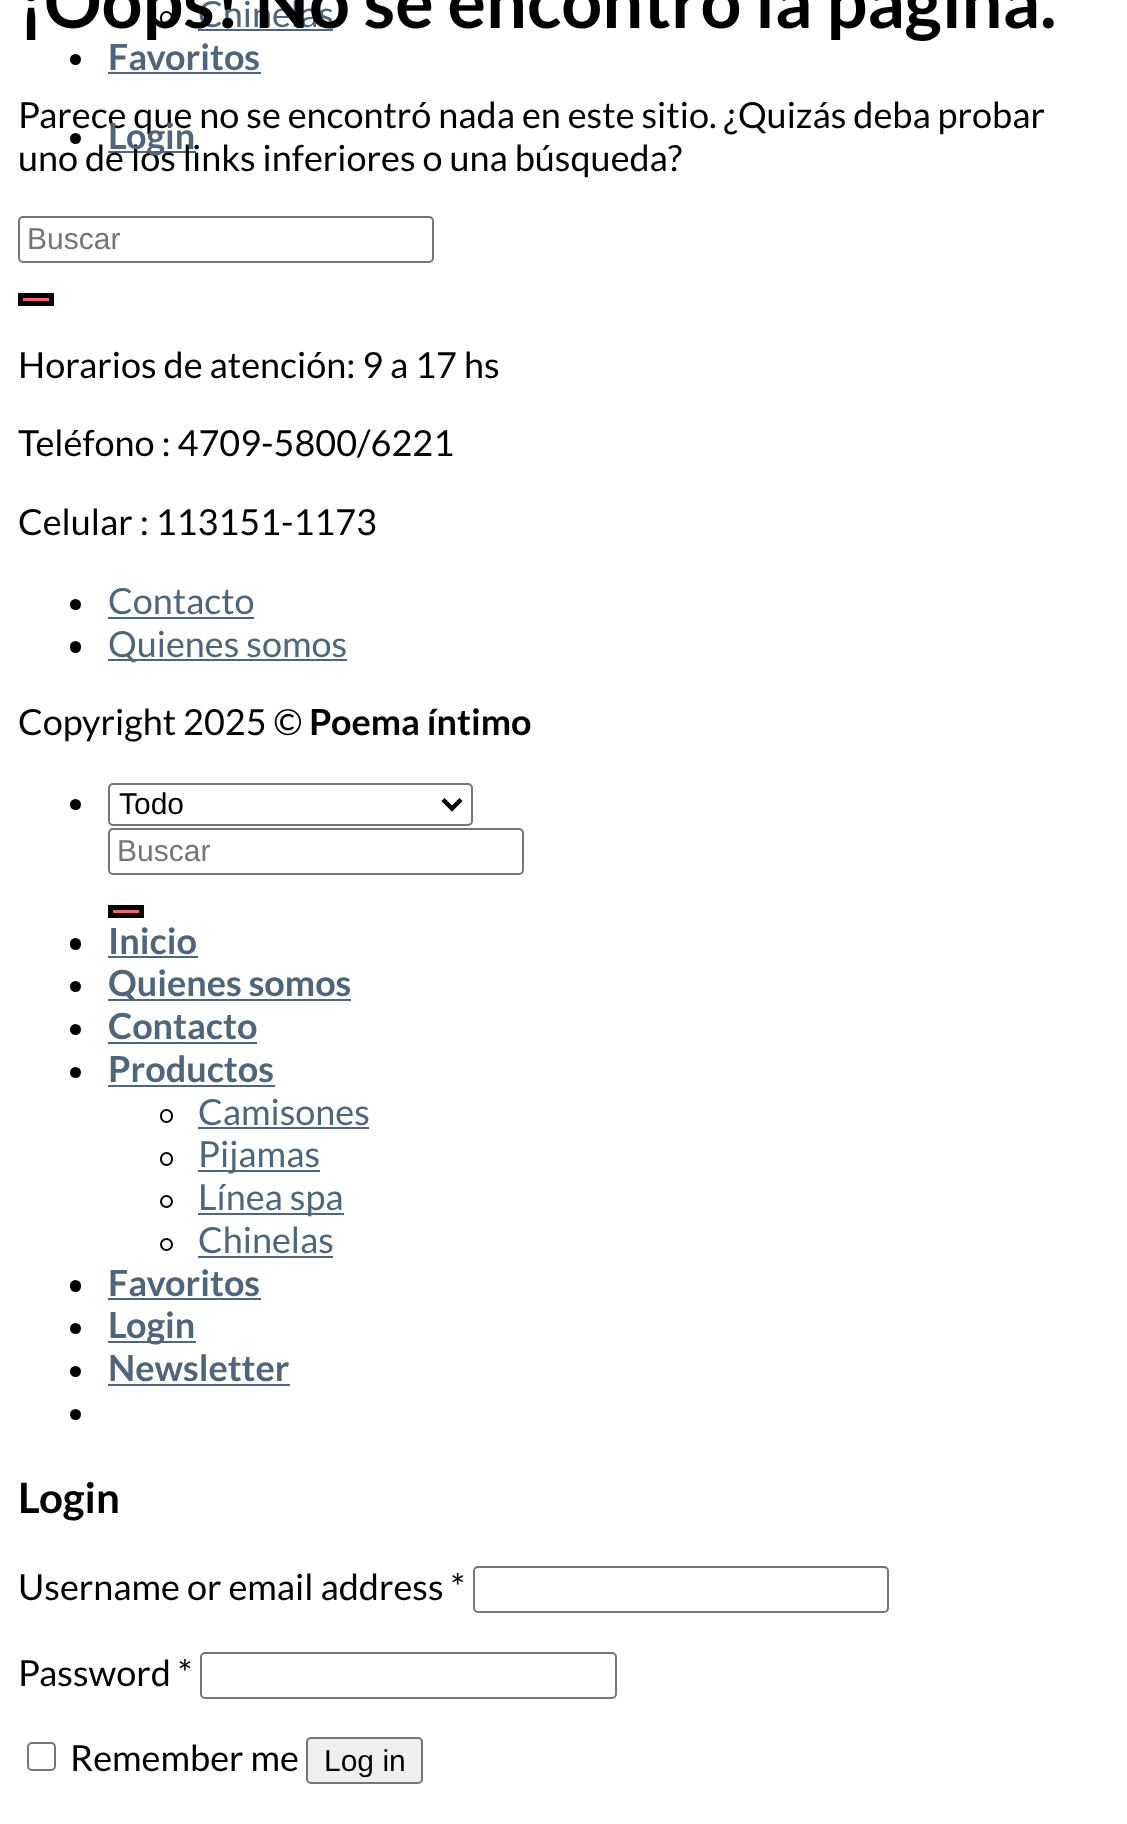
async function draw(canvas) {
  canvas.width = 1127;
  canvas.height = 1824;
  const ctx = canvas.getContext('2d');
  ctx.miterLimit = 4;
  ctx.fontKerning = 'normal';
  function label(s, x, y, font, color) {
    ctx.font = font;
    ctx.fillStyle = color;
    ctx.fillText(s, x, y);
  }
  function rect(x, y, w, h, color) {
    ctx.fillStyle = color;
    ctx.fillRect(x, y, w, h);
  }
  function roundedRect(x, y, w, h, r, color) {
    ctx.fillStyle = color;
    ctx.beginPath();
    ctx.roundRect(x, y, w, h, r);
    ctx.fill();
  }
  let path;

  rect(0, 0, 1127, 1824, '#fff');
  ctx.beginPath();
  ctx.roundRect(161, 12, 11, 12, 5.5);
  ctx.strokeStyle = '#000';
  ctx.lineWidth = 2;
  ctx.stroke();
  label('Chinelas', 198, 27, '36px Lato', '#4e657b');
  rect(198, 29, 135, 2, '#4e657b');
  label('¡Oops! No se encontró la página.', 18, 28, 'bold 72px Lato', '#000');
  ctx.beginPath();
  ctx.arc(75.5, 138.5, 5.5, 0, 2 * Math.PI);
  ctx.fill();
  label('Parece que no se encontró nada en este sitio. ¿Quizás deba probar', 18, 128, '36px Lato', '#000');
  rect(108, 151, 88, 2, '#4e657b');
  label('uno de los links inferiores o una búsqueda?', 18, 171, '36px Lato', '#000');
  ctx.beginPath();
  ctx.roundRect(19, 217, 414, 45, 4);
  ctx.strokeStyle = '#767676';
  ctx.stroke();
  label('Buscar', 27, 249, '30px Liberation Sans', '#757575');
  ctx.fillStyle = '#f0666a';
  ctx.beginPath();
  ctx.rect(20.5, 295.5, 31, 8);
  ctx.fill();
  ctx.strokeStyle = '#000';
  ctx.lineWidth = 5;
  ctx.stroke();
  ctx.fillStyle = '#000';
  ctx.beginPath();
  ctx.arc(75.5, 59.5, 5.5, 0, 2 * Math.PI);
  ctx.fill();
  label('Favoritos', 108, 70, 'bold 36px Lato', '#4e657b');
  rect(108, 72, 153, 2, '#4e657b');
  label('Login', 108, 149, 'bold 36px Lato', '#4e657b');
  label('Horarios de atención: 9 a 17 hs', 18, 378, '36px Lato', '#000');
  label('Teléfono : 4709-5800/6221', 18, 456, '36px Lato', '#000');
  label('Celular : 113151-1173', 18, 535, '36px Lato', '#000');
  ctx.beginPath();
  ctx.arc(75.5, 604.5, 5.5, 0, 2 * Math.PI);
  ctx.fill();
  label('Contacto', 108, 614, '36px Lato', '#4e657b');
  rect(108, 617, 146, 2, '#4e657b');
  roundedRect(70, 641, 11, 12, 5.5, '#000');
  rect(108, 659, 239, 2, '#4e657b');
  label('Quienes somos', 108, 657, '36px Lato', '#4e657b');
  label('Copyright 2025 ©', 18, 735, '36px Lato', '#000');
  label('Poema íntimo', 309, 735, 'bold 36px Lato', '#000');
  ctx.beginPath();
  ctx.arc(75.5, 804.5, 5.5, 0, 2 * Math.PI);
  ctx.fill();
  ctx.beginPath();
  ctx.roundRect(109, 784, 363, 41, 4);
  ctx.strokeStyle = '#767676';
  ctx.lineWidth = 2;
  ctx.stroke();
  path = new Path2D('M443 799.5L452 808.5L461 799.5');
  ctx.strokeStyle = '#000';
  ctx.lineWidth = 4.5;
  ctx.stroke(path);
  label('Todo', 119, 814, '30px Liberation Sans', '#000');
  ctx.beginPath();
  ctx.roundRect(109, 829, 414, 45, 4);
  ctx.strokeStyle = '#767676';
  ctx.lineWidth = 2;
  ctx.stroke();
  label('Buscar', 117, 861, '30px Liberation Sans', '#757575');
  ctx.fillStyle = '#f0666a';
  ctx.beginPath();
  ctx.rect(110.5, 907.5, 31, 8);
  ctx.fill();
  ctx.strokeStyle = '#000';
  ctx.lineWidth = 5;
  ctx.stroke();
  roundedRect(70, 938, 11, 12, 5.5, '#000');
  label('Inicio', 108, 954, 'bold 36px Lato', '#4e657b');
  rect(108, 956, 90, 2, '#4e657b');
  ctx.fillStyle = '#000';
  ctx.beginPath();
  ctx.arc(75.5, 986.5, 5.5, 0, 2 * Math.PI);
  ctx.fill();
  rect(108, 999, 243, 2, '#4e657b');
  label('Quienes somos', 108, 996, 'bold 36px Lato', '#4e657b');
  ctx.fillStyle = '#000';
  ctx.beginPath();
  ctx.arc(75.5, 1029.5, 5.5, 0, 2 * Math.PI);
  ctx.fill();
  label('Contacto', 108, 1039, 'bold 36px Lato', '#4e657b');
  rect(108, 1042, 149, 2, '#4e657b');
  ctx.fillStyle = '#000';
  ctx.beginPath();
  ctx.arc(75.5, 1072.5, 5.5, 0, 2 * Math.PI);
  ctx.fill();
  label('Productos', 108, 1082, 'bold 36px Lato', '#4e657b');
  rect(108, 1085, 167, 2, '#4e657b');
  ctx.beginPath();
  ctx.roundRect(161, 1110, 11, 12, 5.5);
  ctx.lineWidth = 2;
  ctx.stroke();
  label('Camisones', 198, 1125, '36px Lato', '#4e657b');
  rect(198, 1127, 171, 2, '#4e657b');
  ctx.beginPath();
  ctx.roundRect(161, 1153, 11, 12, 5.5);
  ctx.stroke();
  rect(198, 1170, 122, 2, '#4e657b');
  label('Pijamas', 198, 1167, '36px Lato', '#4e657b');
  ctx.beginPath();
  ctx.arc(166.5, 1201.5, 5.5, 0, 2 * Math.PI);
  ctx.stroke();
  rect(198, 1213, 146, 2, '#4e657b');
  label('Línea spa', 198, 1210, '36px Lato', '#4e657b');
  ctx.beginPath();
  ctx.arc(166.5, 1244.5, 5.5, 0, 2 * Math.PI);
  ctx.stroke();
  label('Chinelas', 198, 1253, '36px Lato', '#4e657b');
  rect(198, 1256, 135, 2, '#4e657b');
  roundedRect(70, 1280, 11, 12, 5.5, '#000');
  label('Favoritos', 108, 1296, 'bold 36px Lato', '#4e657b');
  rect(108, 1298, 153, 2, '#4e657b');
  ctx.fillStyle = '#000';
  ctx.beginPath();
  ctx.arc(75.5, 1328.5, 5.5, 0, 2 * Math.PI);
  ctx.fill();
  rect(108, 1341, 88, 2, '#4e657b');
  label('Login', 108, 1338, 'bold 36px Lato', '#4e657b');
  ctx.fillStyle = '#000';
  ctx.beginPath();
  ctx.arc(75.5, 1371.5, 5.5, 0, 2 * Math.PI);
  ctx.fill();
  label('Newsletter', 108, 1381, 'bold 36px Lato', '#4e657b');
  rect(108, 1384, 182, 2, '#4e657b');
  ctx.fillStyle = '#000';
  ctx.beginPath();
  ctx.arc(75.5, 1414.5, 5.5, 0, 2 * Math.PI);
  ctx.fill();
  label('Login', 18, 1513, 'bold 42px Lato', '#000');
  label('Username or email address *', 18, 1600, '36px Lato', '#000');
  ctx.beginPath();
  ctx.roundRect(474, 1567, 414, 45, 4);
  ctx.strokeStyle = '#767676';
  ctx.stroke();
  label('Password *', 18, 1686, '36px Lato', '#000');
  ctx.beginPath();
  ctx.roundRect(201, 1653, 415, 45, 4);
  ctx.stroke();
  ctx.beginPath();
  ctx.roundRect(28, 1743, 27, 27, 4);
  ctx.stroke();
  label('Remember me', 70, 1771, '36px Lato', '#000');
  ctx.fillStyle = '#efefef';
  ctx.beginPath();
  ctx.roundRect(307, 1738, 115, 45, 4);
  ctx.fill();
  ctx.stroke();
  label('Log in', 324, 1771, '30px Liberation Sans', '#000');
}

draw(document.querySelector('canvas'));
